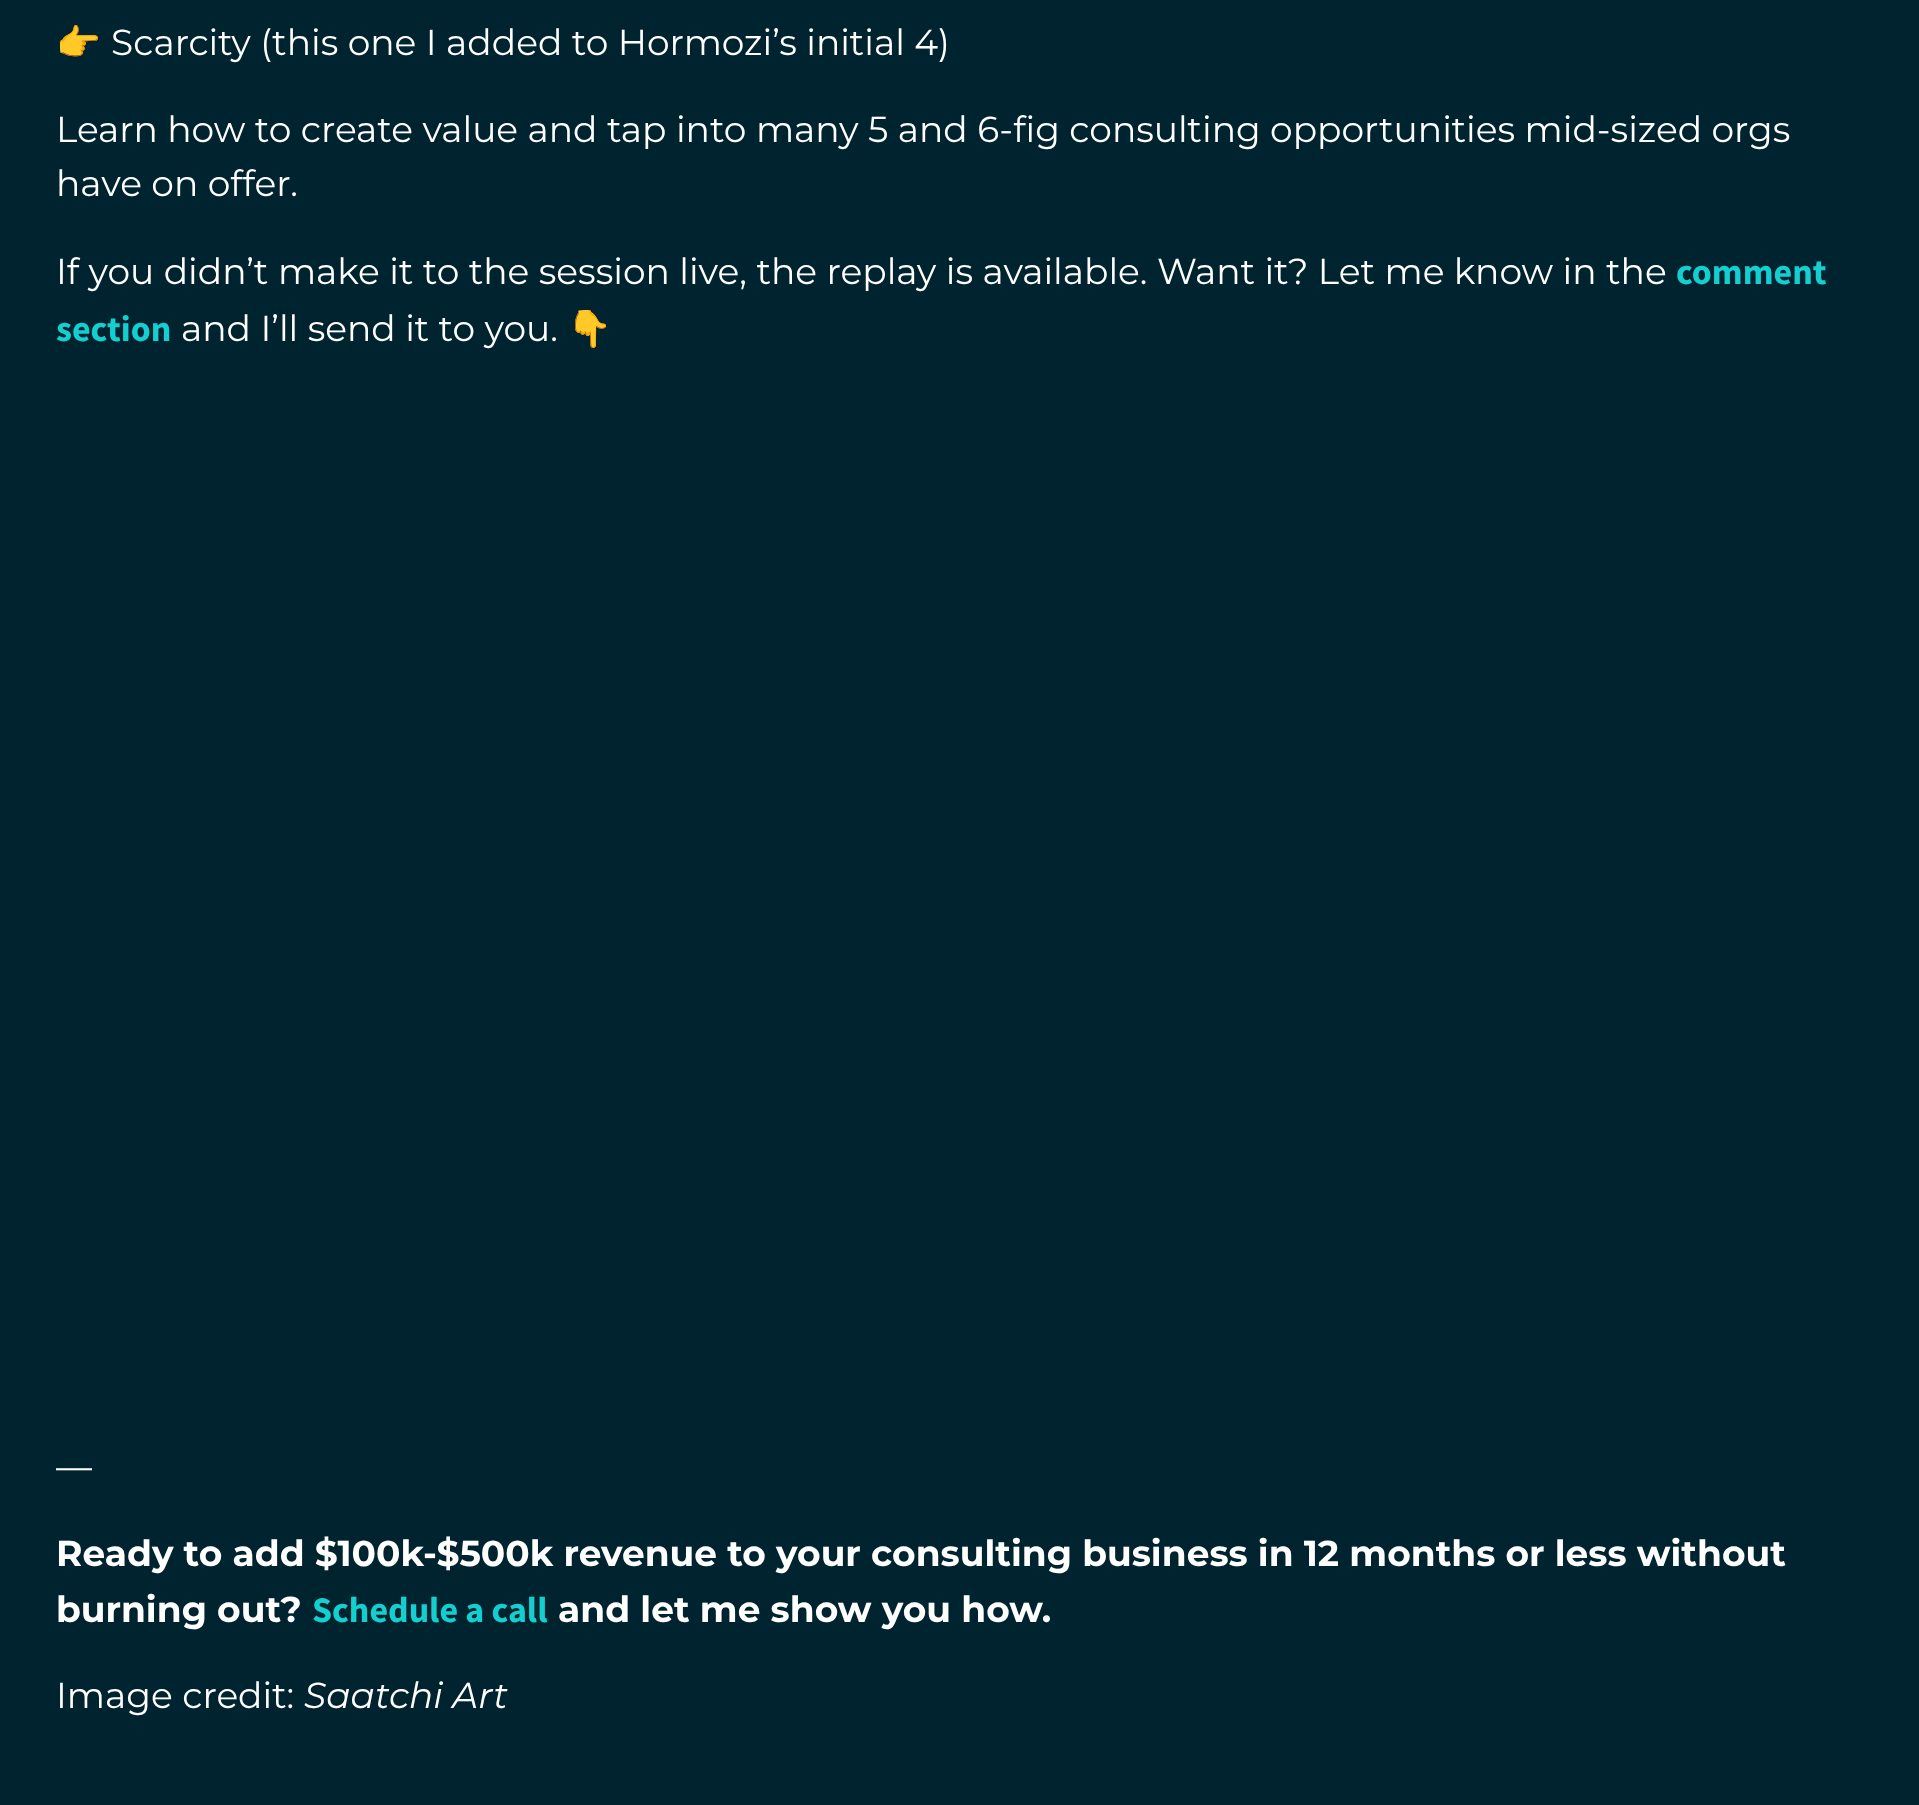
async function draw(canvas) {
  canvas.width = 1919;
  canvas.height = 1805;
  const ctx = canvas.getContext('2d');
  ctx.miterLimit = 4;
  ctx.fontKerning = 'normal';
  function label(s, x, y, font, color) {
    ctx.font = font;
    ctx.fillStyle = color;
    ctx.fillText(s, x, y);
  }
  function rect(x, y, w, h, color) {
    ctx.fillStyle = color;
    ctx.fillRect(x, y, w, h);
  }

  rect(0, 0, 1919, 1805, '#002330');
  label('👉', 56, 55, '36px Noto Color Emoji', '#fff');
  label('Scarcity (this one I added to Hormozi’s initial 4)', 111, 55, '36px Montserrat', '#fff');
  label('Learn how to create value and tap into many 5 and 6-fig consulting opportunities mid-sized orgs', 56, 142, '36px Montserrat', '#fff');
  label('have on offer.', 56, 196, '36px Montserrat', '#fff');
  label('If you didn’t make it to the session live, the replay is available. Want it? Let me know in the', 56, 284, '36px Montserrat', '#fff');
  label('comment', 1676, 284, 'bold 36px Source Sans Pro', '#13cfcf');
  label('section', 56, 341, 'bold 36px Source Sans Pro', '#13cfcf');
  label('and I’ll send it to you.', 181, 341, '36px Montserrat', '#fff');
  label('👇', 567, 341, '36px Noto Color Emoji', '#fff');
  label('—', 56, 1479, '36px Montserrat', '#fff');
  label('Ready to add $100k-$500k revenue to your consulting business in 12 months or less without', 56, 1566, 'bold 36px Montserrat', '#fff');
  label('burning out?', 56, 1622, 'bold 36px Montserrat', '#fff');
  label('Schedule a call', 312, 1622, 'bold 36px Source Sans Pro', '#13cfcf');
  label('and let me show you how.', 558, 1622, 'bold 36px Montserrat', '#fff');
  label('Image credit:', 56, 1708, '36px Montserrat', '#fff');
  label('Saatchi Art', 304, 1708, 'italic 36px Montserrat', '#fff');
  rect(79, 1780, 1762, 2, '#042033');
}

draw(document.querySelector('canvas'));
